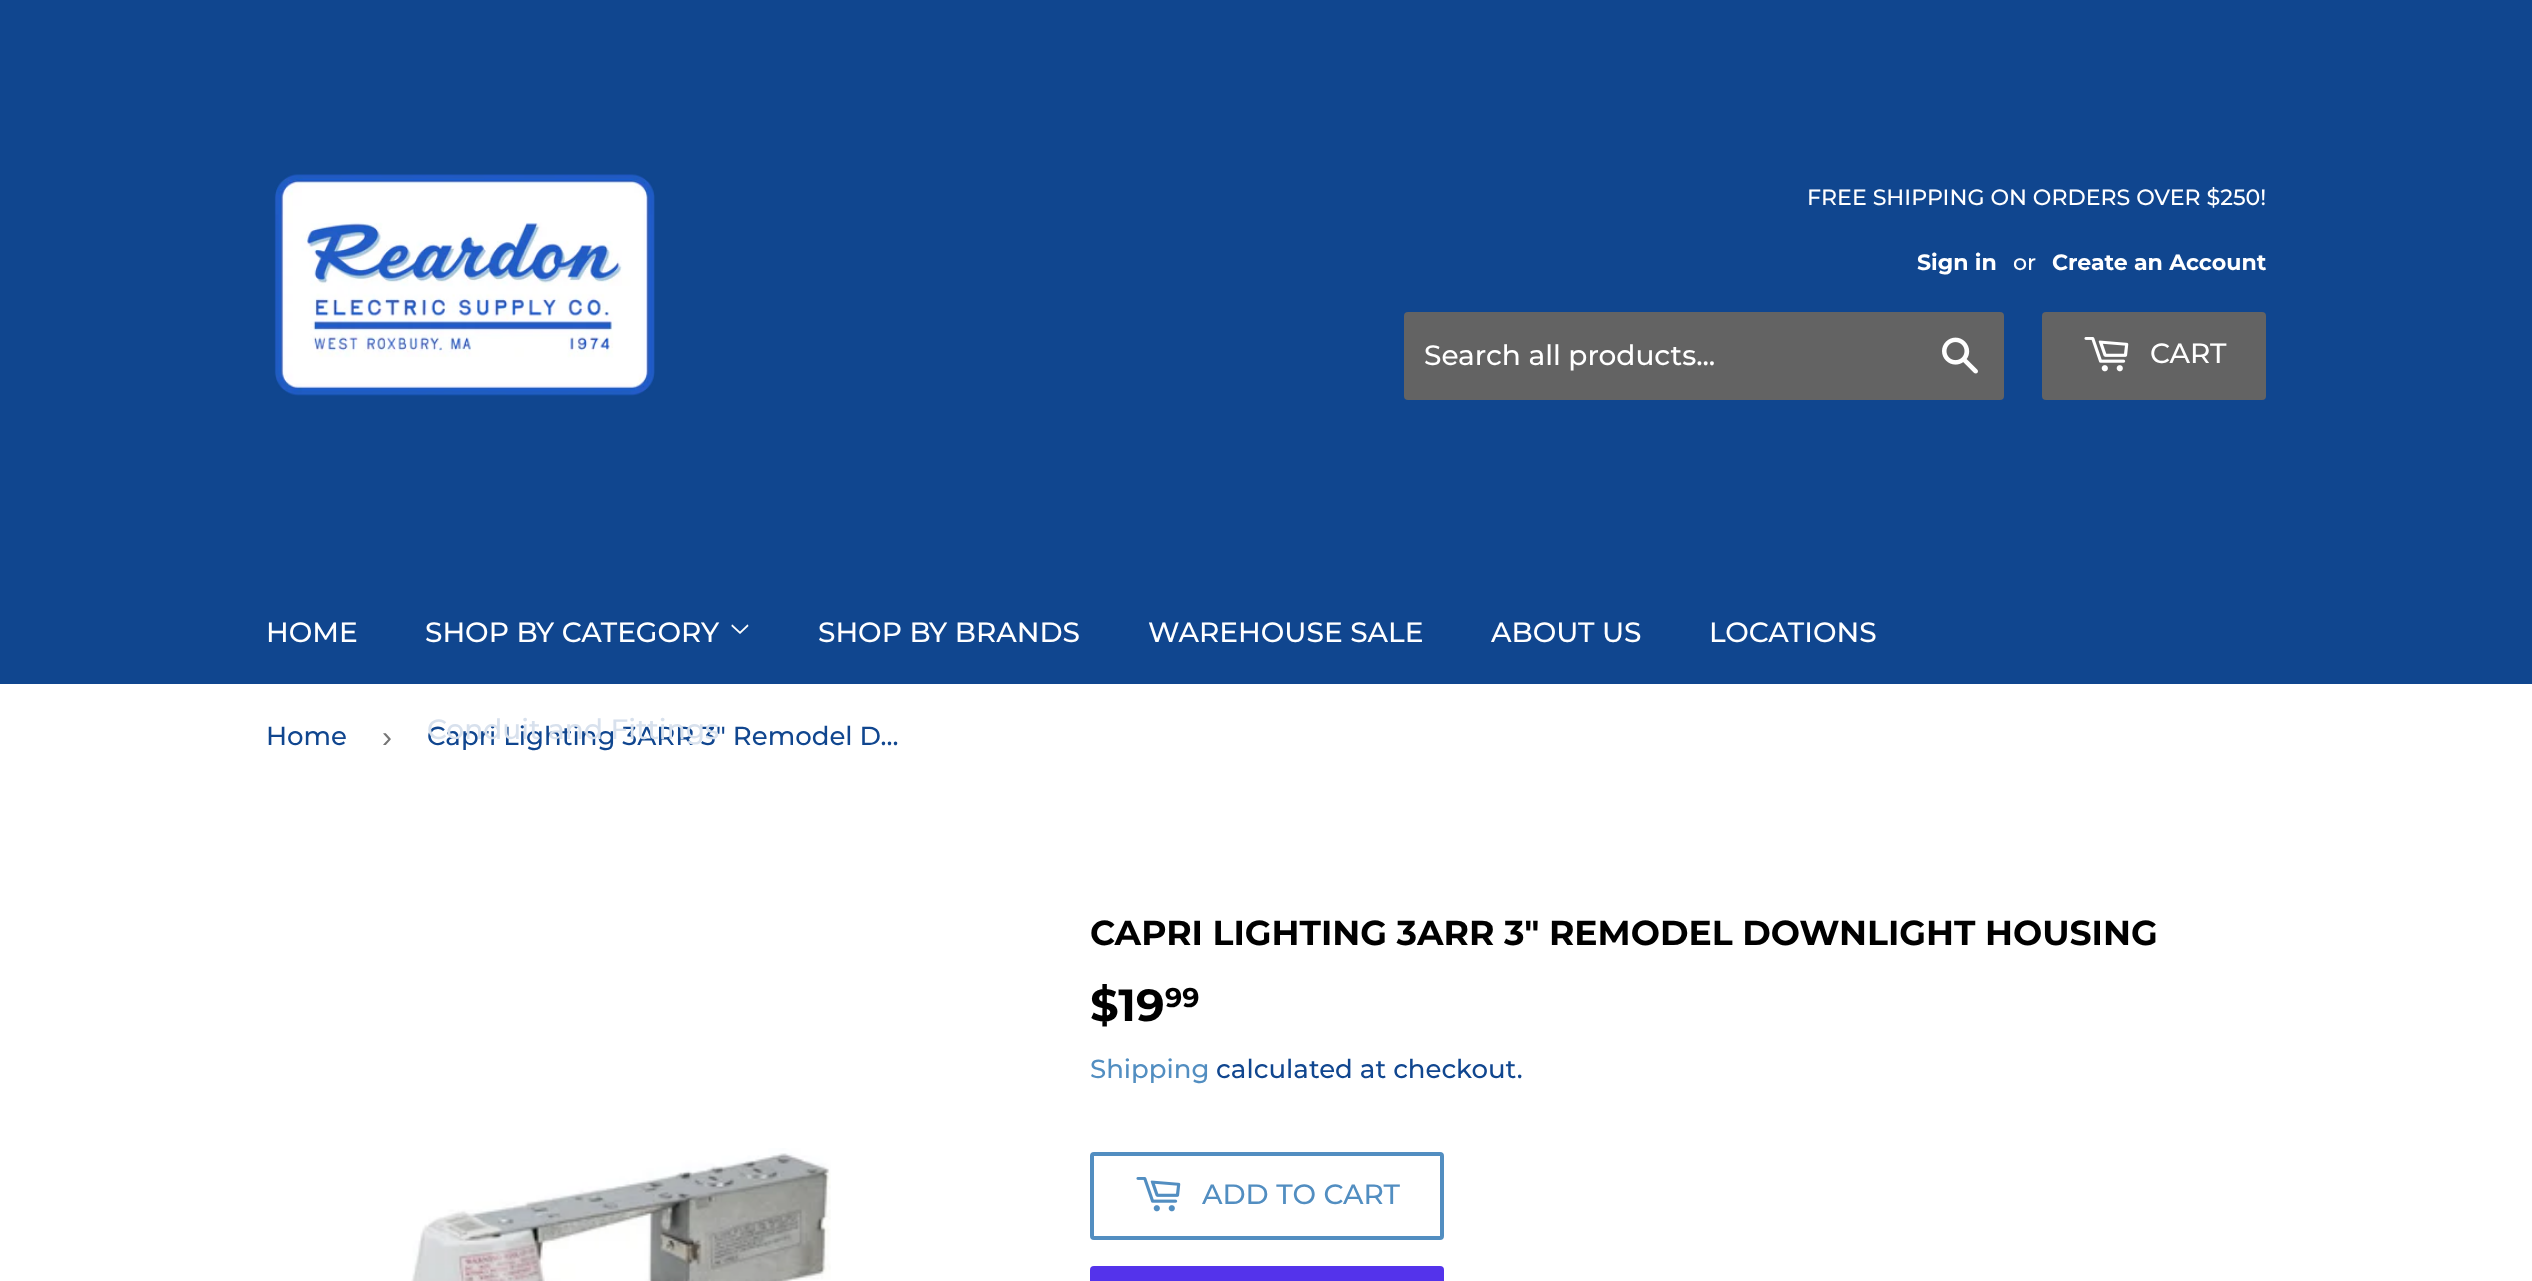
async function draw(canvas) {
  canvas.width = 2532;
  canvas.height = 1281;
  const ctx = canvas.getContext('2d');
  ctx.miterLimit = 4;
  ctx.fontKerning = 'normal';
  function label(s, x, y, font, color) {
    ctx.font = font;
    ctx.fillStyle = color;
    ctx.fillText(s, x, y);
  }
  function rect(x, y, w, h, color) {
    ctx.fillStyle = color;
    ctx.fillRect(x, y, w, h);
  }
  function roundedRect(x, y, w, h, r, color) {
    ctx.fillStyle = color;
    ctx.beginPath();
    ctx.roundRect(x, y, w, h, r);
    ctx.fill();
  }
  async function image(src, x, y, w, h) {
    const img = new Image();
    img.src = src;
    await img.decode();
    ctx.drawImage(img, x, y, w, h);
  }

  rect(0, 0, 2532, 1281, '#fff');
  rect(0, 0, 2532, 684, '#10468f');
  await image('assets/img1.png', 274, 174, 381, 222);
  label('FREE SHIPPING ON ORDERS OVER $250!', 1807, 205, '500 22.1px Montserrat', '#fff');
  label('Sign in', 1917, 270, 'bold 22.1px Montserrat', '#fff');
  label('or', 2013, 270, '500 22.1px Montserrat', '#fff');
  label('Create an Account', 2052, 270, 'bold 22.1px Montserrat', '#fff');
  roundedRect(1404, 312, 600, 88, 4, '#636363');
  label('Search all products...', 1424, 365, '500 28px Montserrat', '#fff');
  await image('assets/img2.png', 1942, 337, 36, 37);
  roundedRect(2042, 312, 224, 88, 4, '#636363');
  await image('assets/img3.png', 2084, 337, 45, 35);
  label('CART', 2150, 363, '500 28px Montserrat', '#fff');
  label('HOME', 266, 642, '500 28px Montserrat', '#fff');
  label('SHOP BY CATEGORY', 425, 642, '500 28px Montserrat', '#fff');
  await image('assets/img4.png', 731, 624, 18, 10);
  label('Capri Lighting 3ARR 3" Remodel D…', 427, 745, '500 26px Montserrat', '#10468f');
  label('Conduit and Fittings', 427, 739, '500 28px Montserrat', '#d8e1ed');
  label('SHOP BY BRANDS', 818, 642, '500 28px Montserrat', '#fff');
  label('WAREHOUSE SALE', 1148, 642, '500 28px Montserrat', '#fff');
  label('ABOUT US', 1491, 642, '500 28px Montserrat', '#fff');
  label('LOCATIONS', 1709, 642, '500 28px Montserrat', '#fff');
  label('Home', 266, 745, '500 26px Montserrat', '#10468f');
  label('›', 382, 747, '30px Liberation Sans', '#767676');
  await image('assets/img5.png', 411, 1148, 420, 133);
  ctx.wordSpacing = '-0.25px';
  label('CAPRI LIGHTING 3ARR 3" REMODEL DOWNLIGHT HOUSING', 1090, 945, 'bold 34.65px Montserrat', '#000');
  ctx.wordSpacing = '0px';
  label('$19', 1090, 1021, 'bold 45px Montserrat', '#000');
  label('99', 1165, 1007, 'bold 27px Montserrat', '#000');
  label('Shipping', 1090, 1078, '500 26px Montserrat', '#528ec1');
  label('calculated at checkout.', 1216, 1078, '500 26px Montserrat', '#10468f');
  ctx.beginPath();
  ctx.roundRect(1092, 1154, 350, 84, 2);
  ctx.strokeStyle = '#528ec1';
  ctx.lineWidth = 4;
  ctx.stroke();
  await image('assets/img6.png', 1136, 1177, 45, 35);
  label('ADD TO CART', 1202, 1204, '500 28px Montserrat', '#528ec1');
  roundedRect(1090, 1266, 354, 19, 4, '#5433eb');
}

draw(document.querySelector('canvas'));
